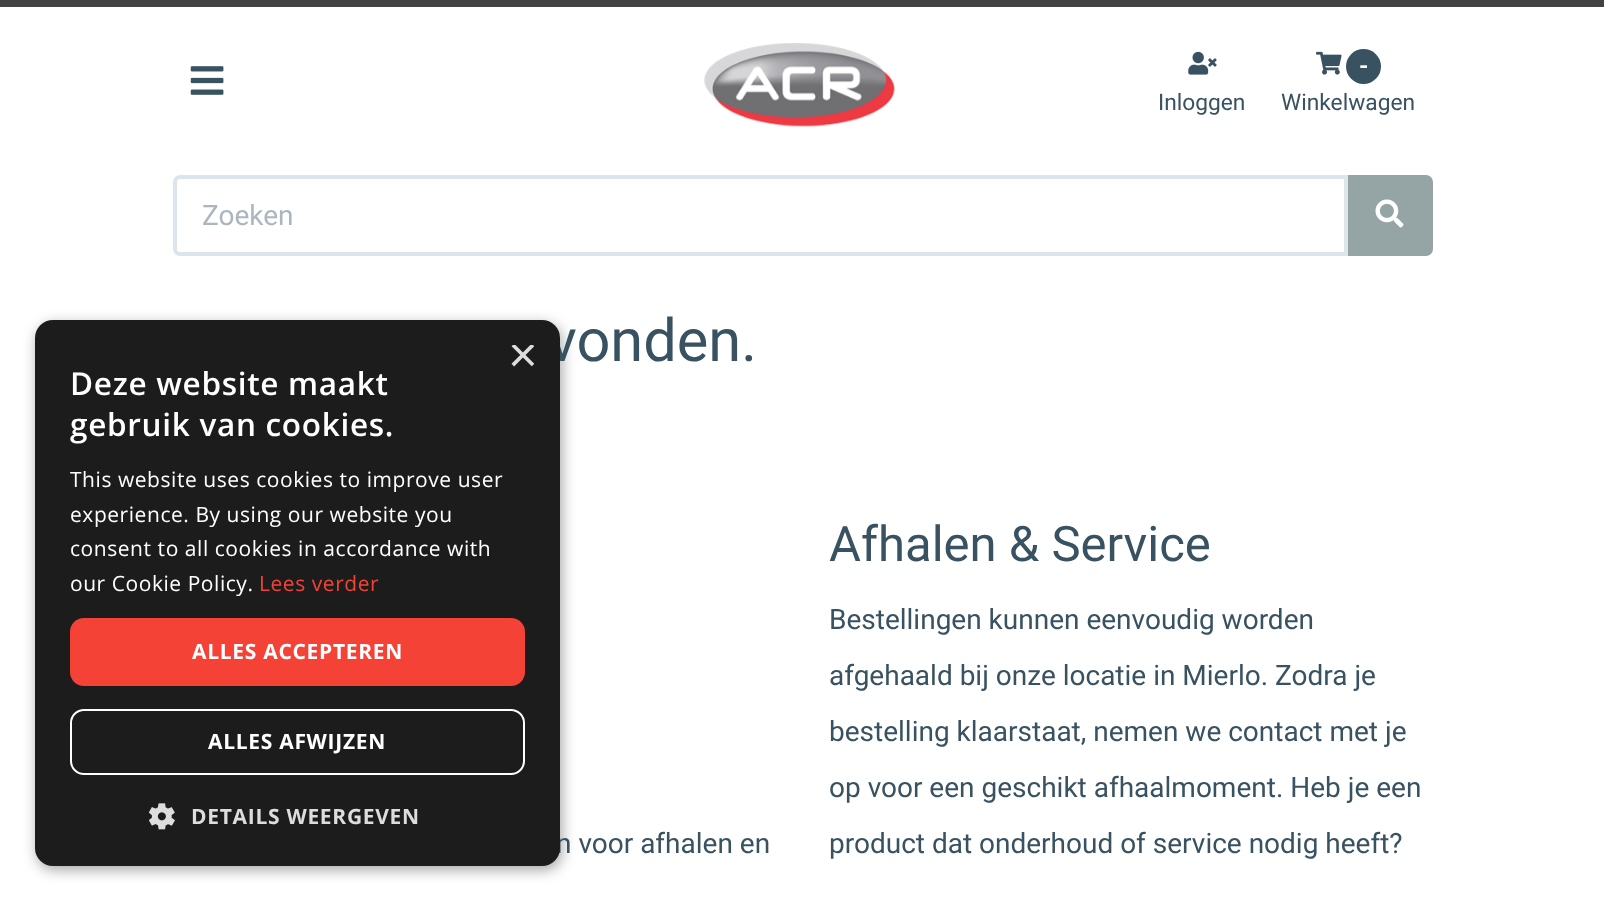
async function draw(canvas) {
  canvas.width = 1604;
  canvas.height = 901;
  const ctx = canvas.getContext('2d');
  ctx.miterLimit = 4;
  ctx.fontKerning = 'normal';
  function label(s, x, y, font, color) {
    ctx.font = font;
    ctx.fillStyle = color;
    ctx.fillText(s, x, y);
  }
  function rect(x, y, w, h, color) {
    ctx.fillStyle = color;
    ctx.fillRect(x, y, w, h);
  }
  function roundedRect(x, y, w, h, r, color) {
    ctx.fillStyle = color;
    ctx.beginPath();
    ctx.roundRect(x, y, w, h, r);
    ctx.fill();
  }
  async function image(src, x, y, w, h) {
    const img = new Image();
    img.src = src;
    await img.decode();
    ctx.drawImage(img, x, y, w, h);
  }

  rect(0, 0, 1604, 901, '#fff');
  rect(0, 0, 1604, 7, '#424242');
  await image('assets/img1.png', 190, 66, 34, 29);
  await image('assets/img2.png', 704, 43, 191, 84);
  await image('assets/img3.png', 1188, 51, 29, 24);
  label('Inloggen', 1158, 110, '22.75px Roboto', '#395261');
  await image('assets/img4.png', 1316, 51, 26, 24);
  ctx.beginPath();
  ctx.arc(1363.5, 66.5, 17.5, 0, 2 * Math.PI);
  ctx.fill();
  label('-', 1359, 74, 'bold 24px Roboto', '#fff');
  label('Winkelwagen', 1281, 110, '22.75px Roboto', '#395261');
  ctx.fillStyle = '#95a5a6';
  ctx.beginPath();
  ctx.roundRect(1348, 177, 83, 77, [0, 5, 5, 0]);
  ctx.fill();
  ctx.strokeStyle = '#95a5a6';
  ctx.lineWidth = 4;
  ctx.stroke();
  ctx.fillStyle = '#fff';
  ctx.beginPath();
  ctx.roundRect(175, 177, 1171, 77, [5, 0, 0, 5]);
  ctx.fill();
  ctx.strokeStyle = '#dce4ec';
  ctx.stroke();
  label('Zoeken', 202, 225, '28px Roboto', '#acb6c0');
  await image('assets/img5.png', 1375, 199, 29, 29);
  ctx.fillStyle = '#00000059';
  ctx.filter = 'blur(7px)';
  ctx.beginPath();
  ctx.roundRect(37, 324, 525, 546, 18);
  ctx.fill();
  ctx.filter = 'none';
  label('vonden.', 548, 361, '59.5px Roboto', '#395261');
  label('n voor afhalen en', 556, 853, '28px Roboto', '#395261');
  roundedRect(35, 320, 525, 546, 18, '#1c1c1c');
  ctx.save();
  ctx.beginPath();
  ctx.rect(508, 345, 26, 26);
  ctx.clip();
  label('×', 508, 372, '51px Liberation Sans', '#ddd');
  ctx.restore();
  ctx.letterSpacing = '0.7px';
  label('Deze website maakt', 70, 395, '600 31.5px Open Sans', '#fff');
  label('gebruik van cookies.', 70, 436, '600 31.5px Open Sans', '#fff');
  ctx.letterSpacing = '0.55px';
  label('This website uses cookies to improve user', 70, 487, '21px Open Sans', '#fff');
  label('experience. By using our website you', 70, 522, '21px Open Sans', '#fff');
  label('consent to all cookies in accordance with', 70, 556, '21px Open Sans', '#fff');
  label('our Cookie Policy.', 70, 591, '21px Open Sans', '#fff');
  label('Lees verder', 259, 591, '21px Open Sans', '#f44336');
  roundedRect(70, 618, 455, 68, 14, '#f44336');
  ctx.letterSpacing = '0.7px';
  label('ALLES ACCEPTEREN', 192, 659, 'bold 21px Open Sans', '#fff');
  ctx.beginPath();
  ctx.roundRect(71, 710, 453, 64, 13);
  ctx.strokeStyle = '#fff';
  ctx.lineWidth = 2;
  ctx.stroke();
  label('ALLES AFWIJZEN', 208, 749, 'bold 21px Open Sans', '#fff');
  await image('assets/img6.png', 149, 803, 26, 27);
  label('DETAILS WEERGEVEN', 191, 824, 'bold 21px Open Sans', '#ddd');
  ctx.letterSpacing = '0px';
  label('Afhalen & Service', 829, 561, '49px Roboto', '#395261');
  label('Bestellingen kunnen eenvoudig worden', 829, 629, '28px Roboto', '#395261');
  label('afgehaald bij onze locatie in Mierlo. Zodra je', 829, 685, '28px Roboto', '#395261');
  label('bestelling klaarstaat, nemen we contact met je', 829, 741, '28px Roboto', '#395261');
  label('op voor een geschikt afhaalmoment. Heb je een', 829, 797, '28px Roboto', '#395261');
  label('product dat onderhoud of service nodig heeft?', 829, 853, '28px Roboto', '#395261');
}

draw(document.querySelector('canvas'));
